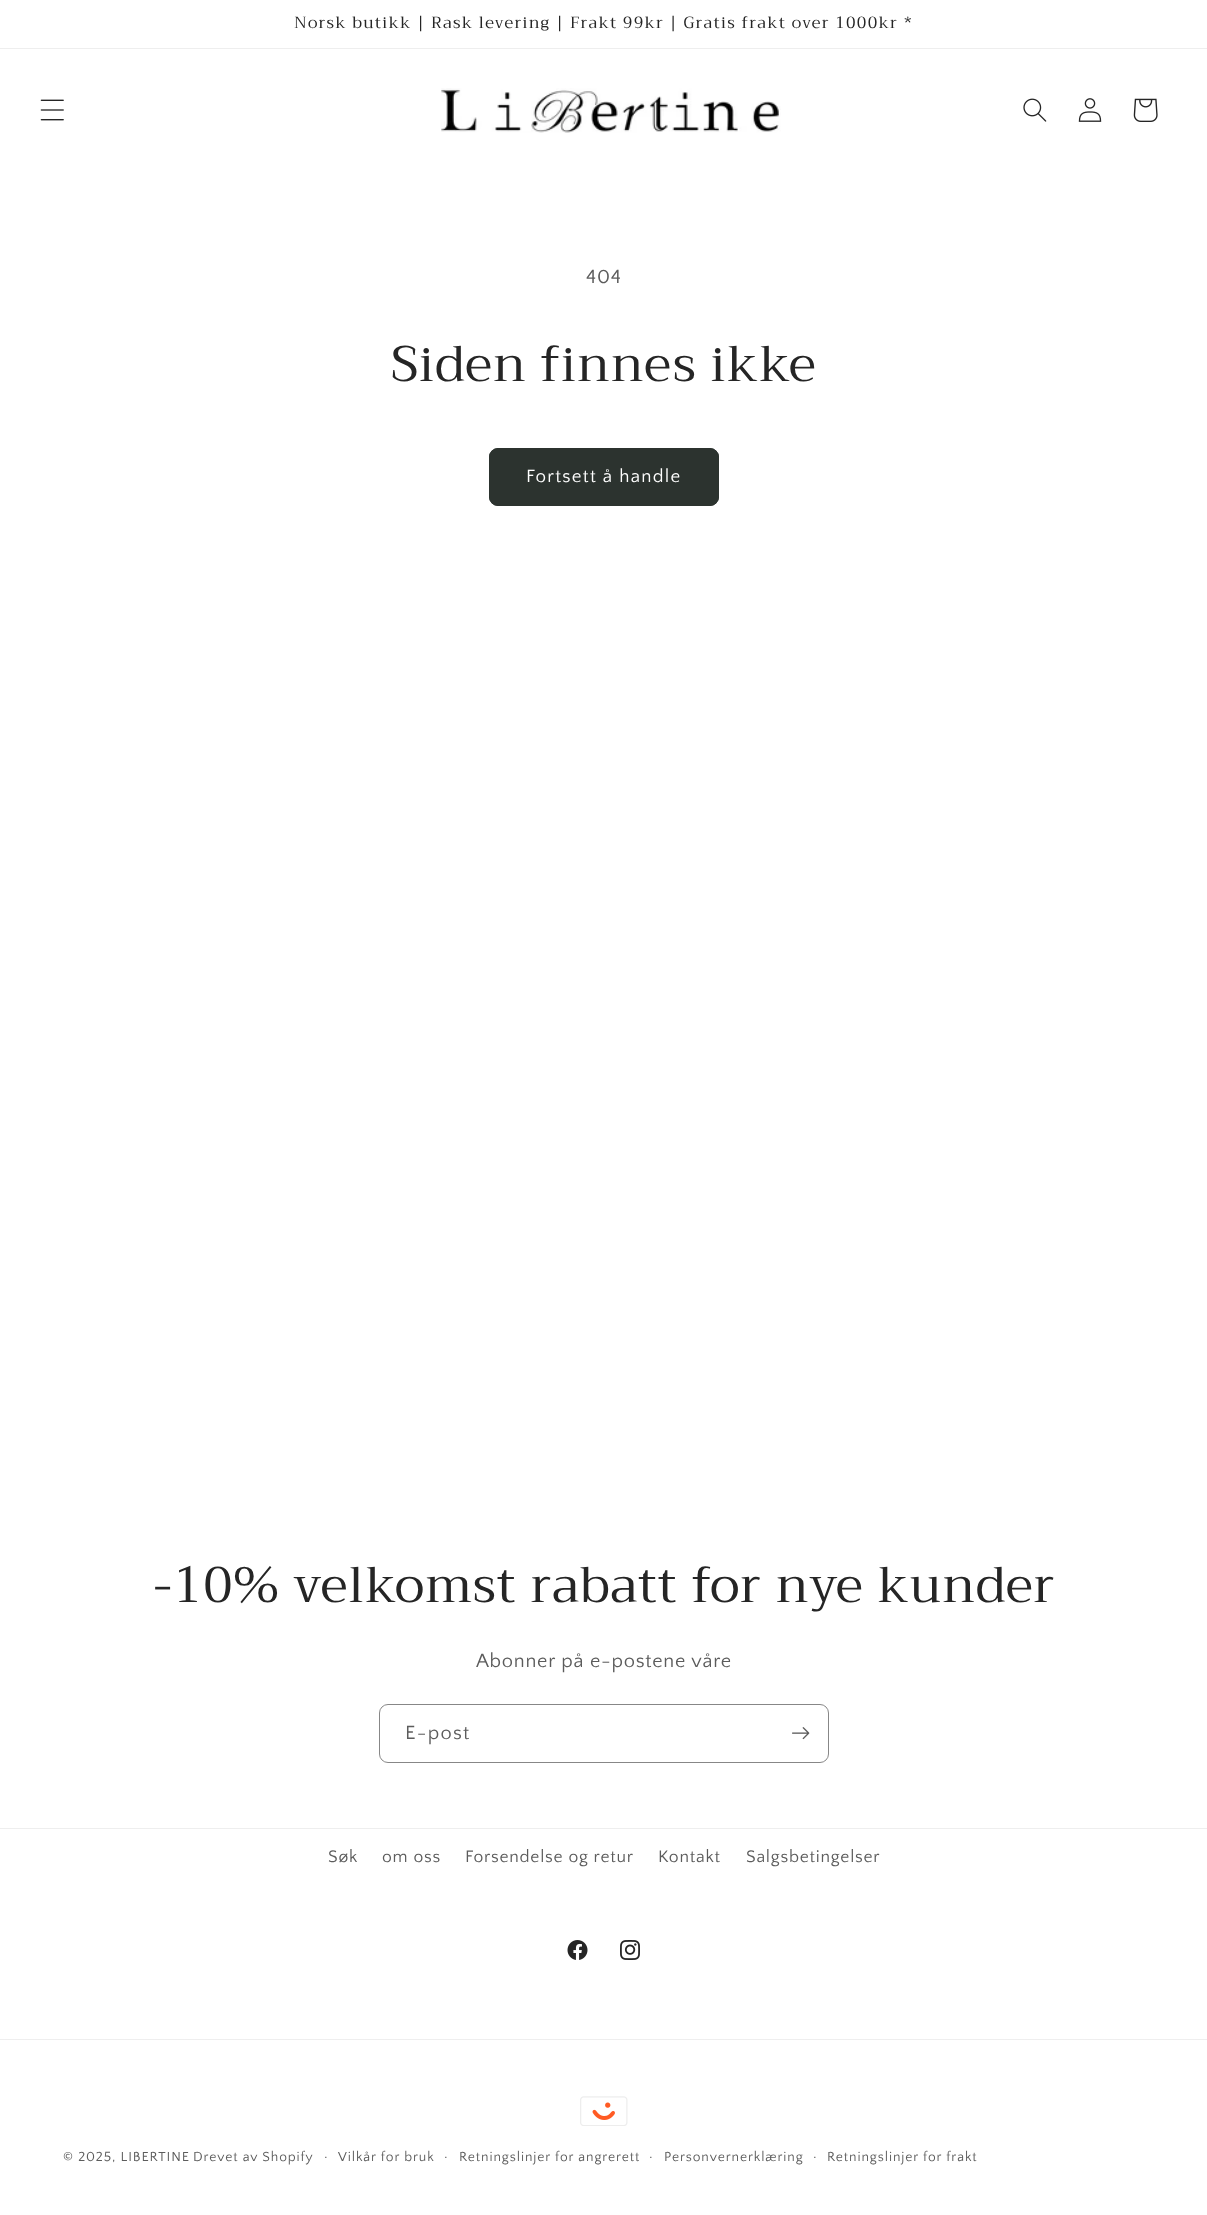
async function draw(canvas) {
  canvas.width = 1207;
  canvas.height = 2215;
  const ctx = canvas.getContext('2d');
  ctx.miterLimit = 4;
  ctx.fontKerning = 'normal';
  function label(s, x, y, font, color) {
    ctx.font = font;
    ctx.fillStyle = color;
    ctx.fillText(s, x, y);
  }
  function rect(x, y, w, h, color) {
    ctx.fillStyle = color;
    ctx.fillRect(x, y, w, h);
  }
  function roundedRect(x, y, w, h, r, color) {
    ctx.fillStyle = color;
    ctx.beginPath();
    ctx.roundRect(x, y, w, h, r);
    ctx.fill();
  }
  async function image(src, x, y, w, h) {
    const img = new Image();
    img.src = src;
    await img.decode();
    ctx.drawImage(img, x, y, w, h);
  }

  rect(0, 0, 1207, 2215, '#fff');
  rect(0, 48, 1207, 1, '#eee');
  ctx.letterSpacing = '1.25px';
  label('Norsk butikk | Rask levering | Frakt 99kr | Gratis frakt over 1000kr *', 294, 28, '16.25px Trirong', '#252525');
  await image('assets/img1.png', 40, 99, 24, 22);
  await image('assets/img2.png', 441, 88, 340, 45);
  await image('assets/img3.png', 1023, 98, 24, 24);
  await image('assets/img4.png', 1078, 98, 24, 24);
  await image('assets/img5.png', 1133, 98, 25, 24);
  ctx.letterSpacing = '0.75px';
  label('404', 586, 283, '20px Quattrocento Sans', '#5c5c5c');
  label('Siden finnes ikke', 391, 381, '50px Trirong', '#252525');
  roundedRect(489, 448, 230, 58, 9, '#2c332f');
  ctx.beginPath();
  ctx.roundRect(489.5, 448.5, 229, 57, 8.5);
  ctx.strokeStyle = '#2c332f';
  ctx.stroke();
  ctx.letterSpacing = '1.25px';
  label('Fortsett å handle', 526, 482, '18.75px Quattrocento Sans', '#fff');
  ctx.letterSpacing = '0.75px';
  label('-10% velkomst rabatt for nye kunder', 153, 1602, '50px Trirong', '#252525');
  label('Abonner på e-postene våre', 476, 1667, '20px Quattrocento Sans', '#5c5c5c');
  ctx.beginPath();
  ctx.roundRect(379.5, 1704.5, 449, 58, 8.5);
  ctx.strokeStyle = '#878787';
  ctx.stroke();
  ctx.letterSpacing = '1.25px';
  label('E-post', 405, 1739, '20px Quattrocento Sans', '#5c5c5c');
  await image('assets/img6.png', 792, 1727, 18, 13);
  rect(0, 1828, 1207, 1, '#eee');
  ctx.letterSpacing = '0.75px';
  label('Søk', 328, 1862, '17.5px Quattrocento Sans', '#5c5c5c');
  label('om oss', 382, 1862, '17.5px Quattrocento Sans', '#5c5c5c');
  label('Forsendelse og retur', 465, 1862, '17.5px Quattrocento Sans', '#5c5c5c');
  label('Kontakt', 658, 1862, '17.5px Quattrocento Sans', '#5c5c5c');
  label('Salgsbetingelser', 746, 1862, '17.5px Quattrocento Sans', '#5c5c5c');
  await image('assets/img7.png', 567, 1940, 21, 20);
  await image('assets/img8.png', 620, 1940, 20, 20);
  rect(0, 2039, 1207, 1, '#eee');
  await image('assets/img9.png', 580, 2096, 48, 30);
  ctx.letterSpacing = '0.9px';
  label('© 2025, LIBERTINE', 63, 2161, '13.75px Quattrocento Sans', '#5c5c5c');
  label('Drevet av Shopify', 193, 2161, '13.75px Quattrocento Sans', '#5c5c5c');
  label('·', 324, 2161, '15px Quattrocento Sans', '#5c5c5c');
  label('Vilkår for bruk', 338, 2161, '13.75px Quattrocento Sans', '#5c5c5c');
  label('·', 444, 2161, '15px Quattrocento Sans', '#5c5c5c');
  label('Retningslinjer for angrerett', 459, 2161, '13.75px Quattrocento Sans', '#5c5c5c');
  label('·', 649, 2161, '15px Quattrocento Sans', '#5c5c5c');
  label('Personvernerklæring', 664, 2161, '13.75px Quattrocento Sans', '#5c5c5c');
  label('·', 813, 2161, '15px Quattrocento Sans', '#5c5c5c');
  label('Retningslinjer for frakt', 827, 2161, '13.75px Quattrocento Sans', '#5c5c5c');
}

draw(document.querySelector('canvas'));
